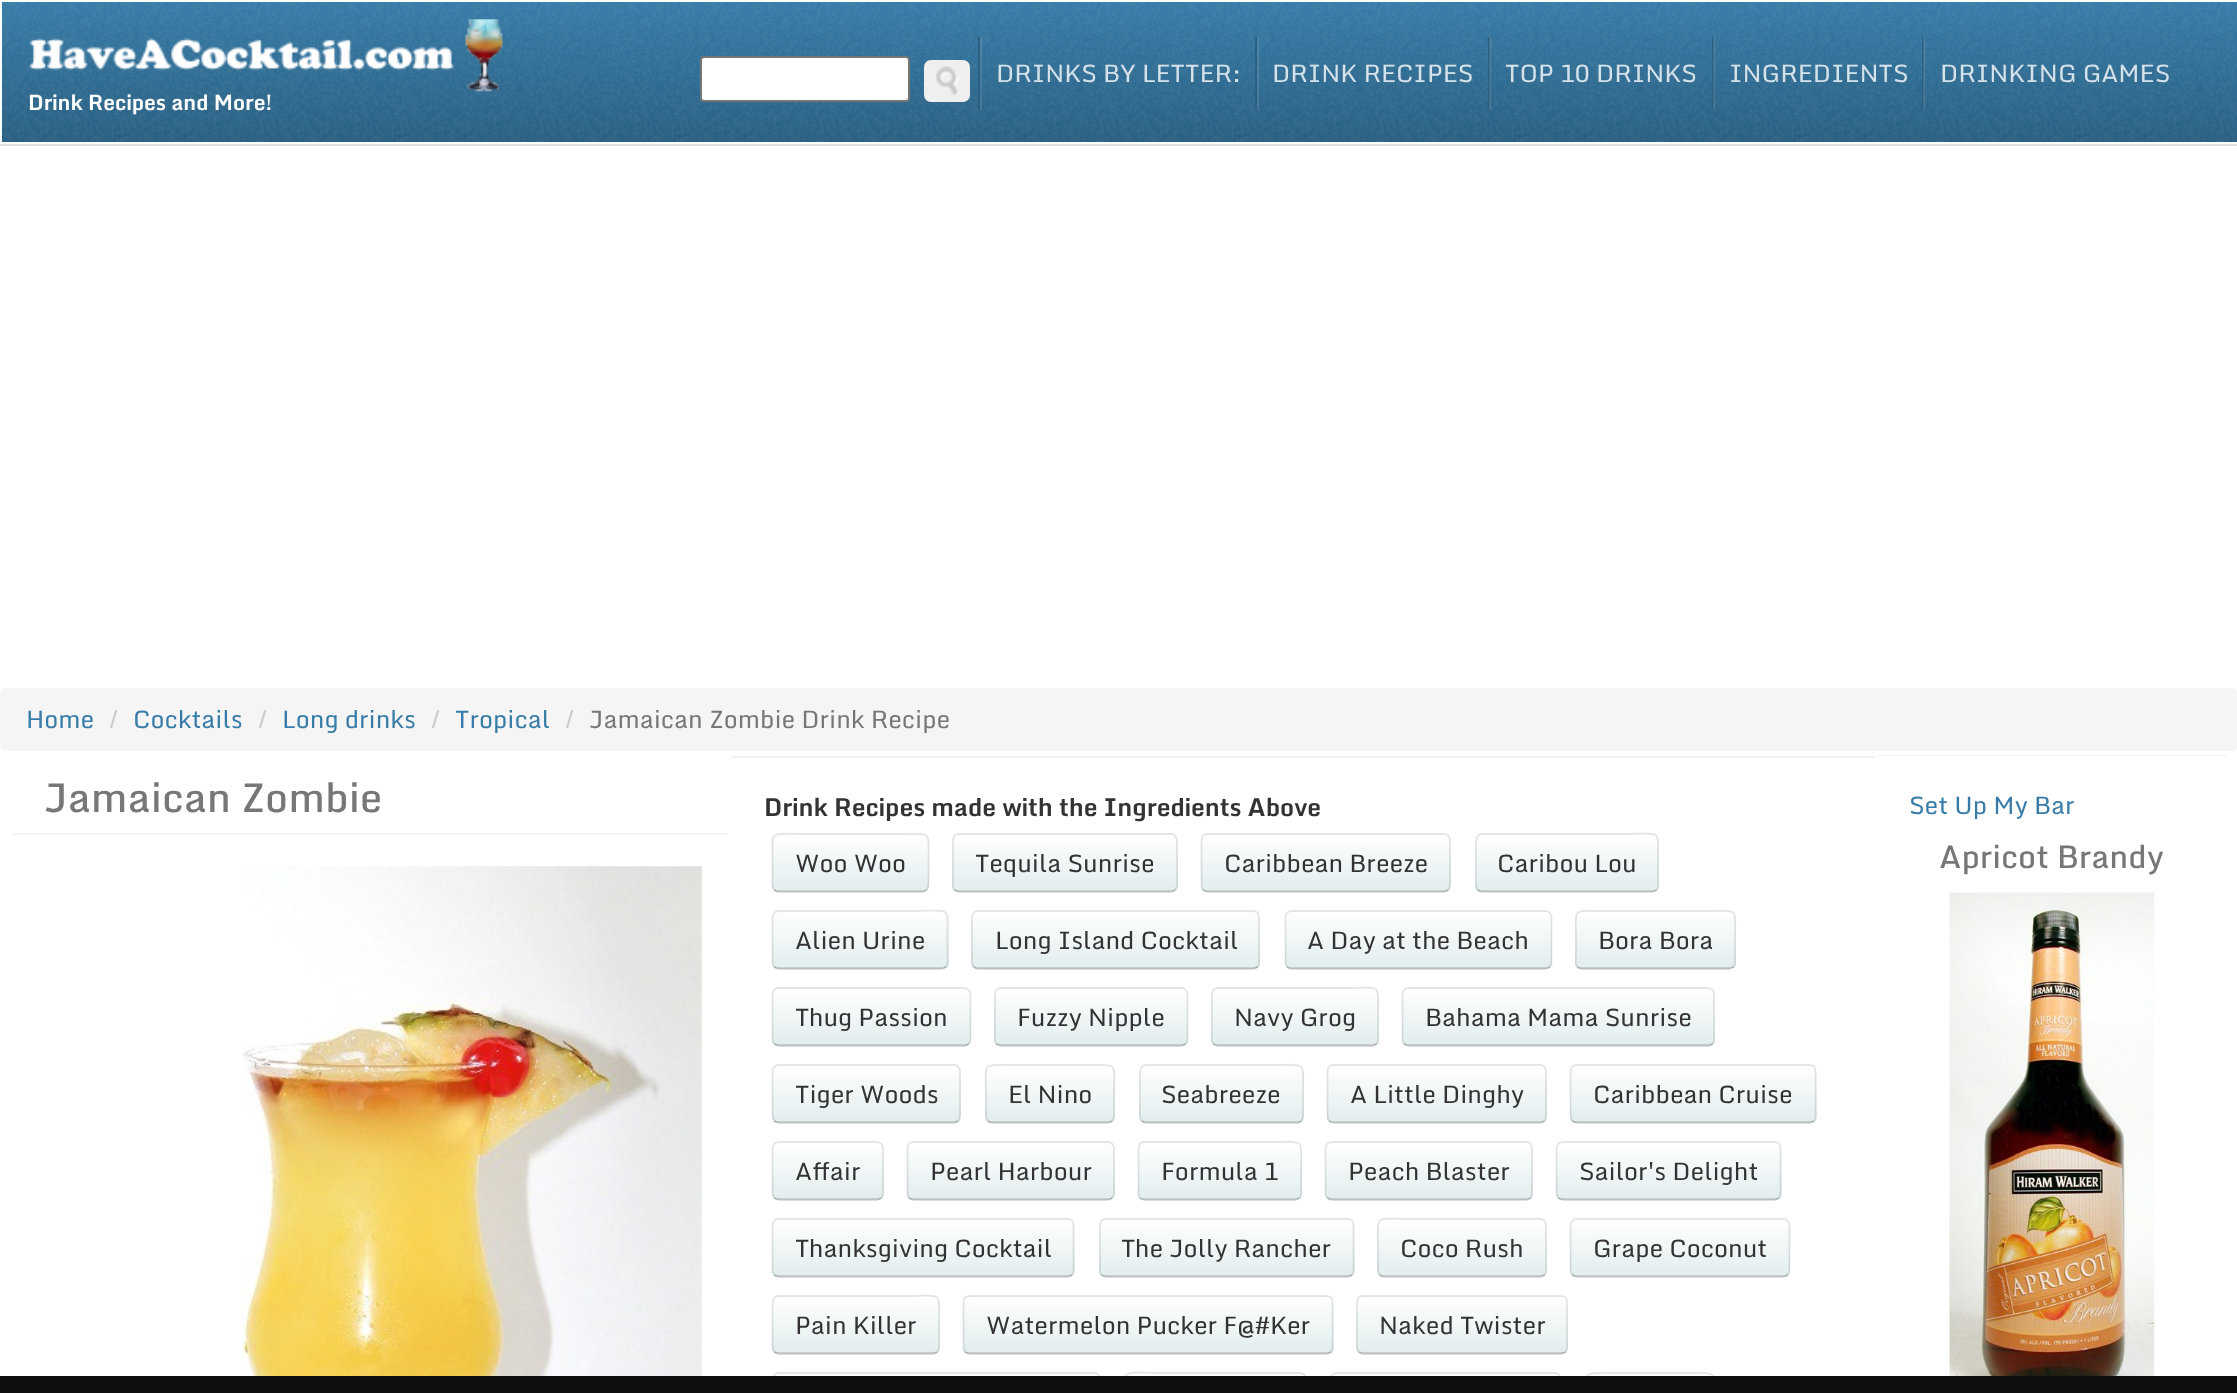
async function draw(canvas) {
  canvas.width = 2237;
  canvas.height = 1393;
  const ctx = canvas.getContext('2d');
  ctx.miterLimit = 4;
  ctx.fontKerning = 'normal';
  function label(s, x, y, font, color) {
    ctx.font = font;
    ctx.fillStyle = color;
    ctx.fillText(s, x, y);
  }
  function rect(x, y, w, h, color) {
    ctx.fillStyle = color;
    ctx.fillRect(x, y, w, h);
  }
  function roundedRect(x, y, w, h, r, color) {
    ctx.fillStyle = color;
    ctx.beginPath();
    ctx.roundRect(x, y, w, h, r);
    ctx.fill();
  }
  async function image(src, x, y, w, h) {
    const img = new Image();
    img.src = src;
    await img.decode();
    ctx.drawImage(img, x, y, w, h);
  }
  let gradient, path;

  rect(0, 0, 2237, 1393, '#fff');
  gradient = ctx.createLinearGradient(1119, 1.7, 1119, 142);
  gradient.addColorStop(0, '#377ca8');
  gradient.addColorStop(1, '#2a6082');
  ctx.fillStyle = gradient;
  ctx.fillRect(2, 2, 2235, 140);
  await image('assets/img1.png', 2, 2, 2235, 140);
  rect(978, 37, 2, 73, '#2a6082');
  ctx.fillStyle = '#fff';
  ctx.beginPath();
  ctx.roundRect(701, 57, 208, 44, 3);
  ctx.fill();
  ctx.strokeStyle = '#767676';
  ctx.lineWidth = 2;
  ctx.stroke();
  roundedRect(924, 60, 46, 42, 7, '#efefef');
  await image('assets/img2.png', 936, 66, 23, 29);
  rect(1255, 37, 2, 73, '#2a6082');
  rect(980, 37, 2, 73, '#ffffff1a');
  label('DRINKS BY LETTER:', 996, 82, '24.5px Monda', '#d5e2ea');
  rect(1488, 37, 2, 73, '#2a6082');
  rect(1257, 37, 2, 73, '#ffffff1a');
  label('DRINK RECIPES', 1272, 82, '24.5px Monda', '#d5e2ea');
  rect(1712, 37, 2, 73, '#2a6082');
  rect(1489, 37, 2, 73, '#ffffff1a');
  label('TOP 10 DRINKS', 1505, 82, '24.5px Monda', '#d5e2ea');
  rect(1922, 37, 2, 73, '#2a6082');
  rect(1713, 37, 2, 73, '#ffffff1a');
  label('INGREDIENTS', 1729, 82, '24.5px Monda', '#d5e2ea');
  rect(1923, 37, 2, 73, '#ffffff1a');
  label('DRINKING GAMES', 1940, 82, '24.5px Monda', '#d5e2ea');
  await image('assets/img3.png', 29, 19, 474, 73);
  label('Drink Recipes and More!', 28, 110, 'bold 21px Monda', '#fff');
  rect(0, 144, 2237, 2, '#e1e1e1');
  roundedRect(0, 688, 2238, 63, 7, '#f5f5f5');
  label('Home', 26, 728, '24.5px Monda', '#377ca8');
  label('/', 109, 728, '24.5px Monda', '#ccc');
  label('Cocktails', 133, 728, '24.5px Monda', '#377ca8');
  label('/', 258, 728, '24.5px Monda', '#ccc');
  label('Long drinks', 282, 728, '24.5px Monda', '#377ca8');
  label('/', 431, 728, '24.5px Monda', '#ccc');
  label('Tropical', 455, 728, '24.5px Monda', '#377ca8');
  label('/', 565, 728, '24.5px Monda', '#ccc');
  label('Jamaican Zombie Drink Recipe', 589, 728, '24.5px Monda', '#777');
  label('Jamaican Zombie', 44, 812, '500 40.25px Monda', '#777');
  ctx.fillStyle = '#f2f2f2';
  path = new Path2D('M16 835H730C733 835 735 837 735 840V838C735 835 733 833 730 833H16C14 833 11 835 11 837C12 836 14 835 16 835Z');
  ctx.fill(path);
  ctx.beginPath();
  ctx.roundRect(10, 832, 726, 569, 6);
  ctx.strokeStyle = '#fff';
  ctx.stroke();
  await image('assets/img4.png', 241, 866, 461, 510);
  roundedRect(728, 754, 1155, 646, 7, '#fff');
  ctx.fillStyle = '#f2f2f2';
  path = new Path2D('M735 758H1876C1879 758 1881 760 1881 763V761C1881 758 1879 756 1876 756H735C732 756 730 758 730 761V763C730 760 732 758 735 758Z');
  ctx.fill(path);
  ctx.beginPath();
  ctx.roundRect(729, 755, 1153, 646, 6);
  ctx.stroke();
  label('Drink Recipes made with the Ingredients Above', 764, 816, 'bold 24.5px Monda', '#333');
  ctx.save();
  ctx.beginPath();
  ctx.roundRect(772, 833, 157, 60, 7);
  ctx.clip();
  gradient = ctx.createLinearGradient(851, 835, 851, 891);
  gradient.addColorStop(0, '#fff');
  gradient.addColorStop(1, '#e2edee');
  ctx.fillStyle = gradient;
  ctx.fillRect(772, 835, 157, 56);
  ctx.restore();
  path = new Path2D('M926.5 890L923 891.5H778C776.5 891.5 775.5 891 774.5 890');
  ctx.strokeStyle = '#00000040';
  ctx.lineWidth = 1.8;
  ctx.stroke(path);
  path = new Path2D('M774.5 890C771.5 887 772.5 881.5 772.5 878V863C772.5 829 767.5 834 802.5 834H898.5C933.5 834 928.5 829 928.5 863V878C928.5 881.5 929.5 887 926.5 890');
  ctx.strokeStyle = '#0000001a';
  ctx.stroke(path);
  label('Woo Woo', 795, 872, '24.5px Monda', '#333');
  ctx.save();
  ctx.beginPath();
  ctx.roundRect(952, 833, 226, 60, 7);
  ctx.clip();
  gradient = ctx.createLinearGradient(1065, 835, 1065, 891);
  gradient.addColorStop(0, '#fff');
  gradient.addColorStop(1, '#e2edee');
  ctx.fillStyle = gradient;
  ctx.fillRect(952, 835, 226, 56);
  ctx.restore();
  path = new Path2D('M1175 890C1174 891 1172.5 891.5 1171 891.5H959C957.5 891.5 956 891 954.5 890');
  ctx.strokeStyle = '#00000040';
  ctx.stroke(path);
  path = new Path2D('M954.5 890C953.5 888.5 953 887 953 885.5V840C953 838.5 953.5 837 954.5 835.5C956 834.5 957.5 834 959 834H1171C1172.5 834 1174 834.5 1175 835.5C1176 837 1177 838.5 1177 840V885.5C1177 887 1176 888.5 1175 890');
  ctx.strokeStyle = '#0000001a';
  ctx.stroke(path);
  label('Tequila Sunrise', 975, 872, '24.5px Monda', '#333');
  ctx.save();
  ctx.beginPath();
  ctx.roundRect(1201, 833, 250, 60, 7);
  ctx.clip();
  gradient = ctx.createLinearGradient(1326, 835, 1326, 891);
  gradient.addColorStop(0, '#fff');
  gradient.addColorStop(1, '#e2edee');
  ctx.fillStyle = gradient;
  ctx.fillRect(1201, 835, 250, 56);
  ctx.restore();
  path = new Path2D('M1448 890C1447 891 1445.5 891.5 1444 891.5H1207.5C1206 891.5 1204.5 891 1203 890');
  ctx.strokeStyle = '#00000040';
  ctx.stroke(path);
  path = new Path2D('M1203 890C1202 888.5 1201.5 887 1201.5 885.5V840C1201.5 838.5 1202 837 1203 835.5C1204.5 834.5 1206 834 1207.5 834H1444C1445.5 834 1447 834.5 1448 835.5C1449 837 1450 838.5 1450 840V885.5C1450 887 1449 888.5 1448 890');
  ctx.strokeStyle = '#0000001a';
  ctx.stroke(path);
  label('Caribbean Breeze', 1224, 872, '24.5px Monda', '#333');
  ctx.save();
  ctx.beginPath();
  ctx.roundRect(1475, 833, 184, 60, 7);
  ctx.clip();
  gradient = ctx.createLinearGradient(1567, 835, 1567, 891);
  gradient.addColorStop(0, '#fff');
  gradient.addColorStop(1, '#e2edee');
  ctx.fillStyle = gradient;
  ctx.fillRect(1475, 835, 184, 56);
  ctx.restore();
  path = new Path2D('M1656.5 890C1655 891 1653.5 891.5 1652 891.5H1482C1480.5 891.5 1479 891 1478 890');
  ctx.strokeStyle = '#00000040';
  ctx.stroke(path);
  path = new Path2D('M1478 890C1475 887 1476 881.5 1476 878V847.5C1476 843 1475 834 1482 834H1623.5C1663 834 1658 827 1658 863V878C1658 881.5 1659.5 887 1656.5 890');
  ctx.strokeStyle = '#0000001a';
  ctx.stroke(path);
  label('Caribou Lou', 1497, 872, '24.5px Monda', '#333');
  ctx.save();
  ctx.beginPath();
  ctx.roundRect(772, 910, 177, 60, 7);
  ctx.clip();
  gradient = ctx.createLinearGradient(860, 912, 860, 968);
  gradient.addColorStop(0, '#fff');
  gradient.addColorStop(1, '#e2edee');
  ctx.fillStyle = gradient;
  ctx.fillRect(772, 912, 177, 56);
  ctx.restore();
  path = new Path2D('M946 967C944.5 968 943 968.5 941.5 968.5H779C777 968.5 775.5 968 774.5 967');
  ctx.strokeStyle = '#00000040';
  ctx.stroke(path);
  path = new Path2D('M774.5 967C771.5 964 772.5 958.5 772.5 955V924.5C772.5 920 771.5 911 779 911H914.5C952.5 911 947.5 904.5 947.5 940V955C947.5 958.5 949 964 946 967');
  ctx.strokeStyle = '#0000001a';
  ctx.stroke(path);
  label('Alien Urine', 795, 949, '24.5px Monda', '#333');
  ctx.save();
  ctx.beginPath();
  ctx.roundRect(971, 910, 289, 60, 7);
  ctx.clip();
  gradient = ctx.createLinearGradient(1116, 912, 1116, 968);
  gradient.addColorStop(0, '#fff');
  gradient.addColorStop(1, '#e2edee');
  ctx.fillStyle = gradient;
  ctx.fillRect(971, 912, 289, 56);
  ctx.restore();
  path = new Path2D('M1257.5 967C1256 968 1254.5 968.5 1253 968.5H978C976.5 968.5 975 968 974 967');
  ctx.strokeStyle = '#00000040';
  ctx.stroke(path);
  path = new Path2D('M974 967C973 965.5 972 964 972 962.5V917C972 915.5 973 914 974 912.5C975 911.5 976.5 911 978 911H1253C1254.5 911 1256 911.5 1257.5 912.5C1258.5 914 1259 915.5 1259 917V962.5C1259 964 1258.5 965.5 1257.5 967');
  ctx.strokeStyle = '#0000001a';
  ctx.stroke(path);
  label('Long Island Cocktail', 995, 949, '24.5px Monda', '#333');
  ctx.save();
  ctx.beginPath();
  ctx.roundRect(1285, 910, 267, 60, 7);
  ctx.clip();
  gradient = ctx.createLinearGradient(1418, 912, 1418, 968);
  gradient.addColorStop(0, '#fff');
  gradient.addColorStop(1, '#e2edee');
  ctx.fillStyle = gradient;
  ctx.fillRect(1285, 912, 267, 56);
  ctx.restore();
  path = new Path2D('M1549.5 967C1548.5 968 1547 968.5 1545 968.5H1291.5C1290 968.5 1288.5 968 1287 967');
  ctx.strokeStyle = '#00000040';
  ctx.stroke(path);
  path = new Path2D('M1287 967C1286 965.5 1285.5 964 1285.5 962.5V917C1285.5 915.5 1286 914 1287 912.5C1288.5 911.5 1290 911 1291.5 911H1545C1547 911 1548.5 911.5 1549.5 912.5C1550.5 914 1551.5 915.5 1551.5 917V962.5C1551.5 964 1550.5 965.5 1549.5 967');
  ctx.strokeStyle = '#0000001a';
  ctx.stroke(path);
  label('A Day at the Beach', 1307, 949, '24.5px Monda', '#333');
  ctx.save();
  ctx.beginPath();
  ctx.roundRect(1575, 910, 161, 60, 7);
  ctx.clip();
  gradient = ctx.createLinearGradient(1656, 912, 1656, 968);
  gradient.addColorStop(0, '#fff');
  gradient.addColorStop(1, '#e2edee');
  ctx.fillStyle = gradient;
  ctx.fillRect(1575, 912, 161, 56);
  ctx.restore();
  path = new Path2D('M1733.5 967L1729.5 968.5H1581.5C1580 968.5 1578.5 968 1577.5 967');
  ctx.strokeStyle = '#00000040';
  ctx.stroke(path);
  path = new Path2D('M1577.5 967C1574.5 964 1576 958.5 1576 955V940C1576 905.5 1570.5 911 1606.5 911H1704.5C1740.5 911 1735 905.5 1735 940V955C1735 958.5 1736.5 964 1733.5 967');
  ctx.strokeStyle = '#0000001a';
  ctx.stroke(path);
  label('Bora Bora', 1598, 949, '24.5px Monda', '#333');
  ctx.save();
  ctx.beginPath();
  ctx.roundRect(772, 987, 199, 60, 7);
  ctx.clip();
  gradient = ctx.createLinearGradient(872, 989, 872, 1045);
  gradient.addColorStop(0, '#fff');
  gradient.addColorStop(1, '#e2edee');
  ctx.fillStyle = gradient;
  ctx.fillRect(772, 989, 199, 56);
  ctx.restore();
  path = new Path2D('M968.5 1044C967.5 1045 966 1045.5 964 1045.5H779C777 1045.5 775.5 1045 774.5 1044');
  ctx.strokeStyle = '#00000040';
  ctx.stroke(path);
  path = new Path2D('M774.5 1044C773.5 1042.5 772.5 1041 772.5 1039.5V994C772.5 992.5 773.5 991 774.5 989.5C775.5 988.5 777 988 779 988H964C966 988 967.5 988.5 968.5 989.5C969.5 991 970.5 992.5 970.5 994V1039.5C970.5 1041 969.5 1042.5 968.5 1044');
  ctx.strokeStyle = '#0000001a';
  ctx.stroke(path);
  label('Thug Passion', 795, 1026, '24.5px Monda', '#333');
  ctx.save();
  ctx.beginPath();
  ctx.roundRect(994, 987, 194, 60, 7);
  ctx.clip();
  gradient = ctx.createLinearGradient(1091, 989, 1091, 1045);
  gradient.addColorStop(0, '#fff');
  gradient.addColorStop(1, '#e2edee');
  ctx.fillStyle = gradient;
  ctx.fillRect(994, 989, 194, 56);
  ctx.restore();
  path = new Path2D('M1185.5 1044C1184.5 1045 1183 1045.5 1181 1045.5H1001C999.5 1045.5 998 1045 996.5 1044');
  ctx.strokeStyle = '#00000040';
  ctx.stroke(path);
  path = new Path2D('M996.5 1044C995.5 1042.5 995 1041 995 1039.5V994C995 992.5 995.5 991 996.5 989.5C998 988.5 999.5 988 1001 988H1181C1183 988 1184.5 988.5 1185.5 989.5C1186.5 991 1187.5 992.5 1187.5 994V1039.5C1187.5 1041 1186.5 1042.5 1185.5 1044');
  ctx.strokeStyle = '#0000001a';
  ctx.stroke(path);
  label('Fuzzy Nipple', 1017, 1026, '24.5px Monda', '#333');
  ctx.save();
  ctx.beginPath();
  ctx.roundRect(1211, 987, 168, 60, 7);
  ctx.clip();
  gradient = ctx.createLinearGradient(1295, 989, 1295, 1045);
  gradient.addColorStop(0, '#fff');
  gradient.addColorStop(1, '#e2edee');
  ctx.fillStyle = gradient;
  ctx.fillRect(1211, 989, 168, 56);
  ctx.restore();
  path = new Path2D('M1376.5 1044C1375 1045 1373.5 1045.5 1372 1045.5H1218C1216.5 1045.5 1215 1045 1213.5 1044');
  ctx.strokeStyle = '#00000040';
  ctx.stroke(path);
  path = new Path2D('M1213.5 1044C1210.5 1041 1212 1035.5 1212 1032V1001.5C1212 997 1210.5 988 1218 988H1346.5C1383 988 1378 982 1378 1017V1032C1378 1035.5 1379.5 1041 1376.5 1044');
  ctx.strokeStyle = '#0000001a';
  ctx.stroke(path);
  label('Navy Grog', 1234, 1026, '24.5px Monda', '#333');
  ctx.save();
  ctx.beginPath();
  ctx.roundRect(1402, 987, 313, 60, 7);
  ctx.clip();
  gradient = ctx.createLinearGradient(1558, 989, 1558, 1045);
  gradient.addColorStop(0, '#fff');
  gradient.addColorStop(1, '#e2edee');
  ctx.fillStyle = gradient;
  ctx.fillRect(1402, 989, 313, 56);
  ctx.restore();
  path = new Path2D('M1712.5 1044C1711 1045 1709.5 1045.5 1708 1045.5H1409C1407 1045.5 1405.5 1045 1404.5 1044');
  ctx.strokeStyle = '#00000040';
  ctx.stroke(path);
  path = new Path2D('M1404.5 1044C1403.5 1042.5 1402.5 1041 1402.5 1039.5V994C1402.5 992.5 1403.5 991 1404.5 989.5C1405.5 988.5 1407 988 1409 988H1708C1709.5 988 1711 988.5 1712.5 989.5C1713.5 991 1714 992.5 1714 994V1039.5C1714 1041 1713.5 1042.5 1712.5 1044');
  ctx.strokeStyle = '#0000001a';
  ctx.stroke(path);
  label('Bahama Mama Sunrise', 1425, 1026, '24.5px Monda', '#333');
  ctx.save();
  ctx.beginPath();
  ctx.roundRect(772, 1064, 189, 60, 7);
  ctx.clip();
  gradient = ctx.createLinearGradient(866, 1066, 866, 1122);
  gradient.addColorStop(0, '#fff');
  gradient.addColorStop(1, '#e2edee');
  ctx.fillStyle = gradient;
  ctx.fillRect(772, 1066, 189, 56);
  ctx.restore();
  path = new Path2D('M958 1121C957 1122 955.5 1122.5 954 1122.5H779C777 1122.5 775.5 1122 774.5 1121');
  ctx.strokeStyle = '#00000040';
  ctx.stroke(path);
  path = new Path2D('M774.5 1121C773.5 1119.5 772.5 1118 772.5 1116.5V1071C772.5 1069.5 773.5 1068 774.5 1066.5C775.5 1065.5 777 1065 779 1065H954C955.5 1065 957 1065.5 958 1066.5C959 1068 960 1069.5 960 1071V1116.5C960 1118 959 1119.5 958 1121');
  ctx.strokeStyle = '#0000001a';
  ctx.stroke(path);
  label('Tiger Woods', 795, 1103, '24.5px Monda', '#333');
  ctx.save();
  ctx.beginPath();
  ctx.roundRect(985, 1064, 130, 60, 7);
  ctx.clip();
  gradient = ctx.createLinearGradient(1050, 1066, 1050, 1122);
  gradient.addColorStop(0, '#fff');
  gradient.addColorStop(1, '#e2edee');
  ctx.fillStyle = gradient;
  ctx.fillRect(985, 1066, 130, 56);
  ctx.restore();
  path = new Path2D('M1112 1121C1111 1122 1109.5 1122.5 1108 1122.5H992C990.5 1122.5 989 1122 988 1121');
  ctx.strokeStyle = '#00000040';
  ctx.stroke(path);
  path = new Path2D('M988 1121C985 1118 986 1112.5 986 1109V1094C986 1062 980.5 1065 1011.5 1065H1088.5C1119.5 1065 1114 1062 1114 1094V1109C1114 1112.5 1115 1118 1112 1121');
  ctx.strokeStyle = '#0000001a';
  ctx.stroke(path);
  label('El Nino', 1008, 1103, '24.5px Monda', '#333');
  ctx.save();
  ctx.beginPath();
  ctx.roundRect(1139, 1064, 165, 60, 7);
  ctx.clip();
  gradient = ctx.createLinearGradient(1222, 1066, 1222, 1122);
  gradient.addColorStop(0, '#fff');
  gradient.addColorStop(1, '#e2edee');
  ctx.fillStyle = gradient;
  ctx.fillRect(1139, 1066, 165, 56);
  ctx.restore();
  path = new Path2D('M1301 1121C1300 1122 1298.5 1122.5 1297 1122.5H1146C1144.5 1122.5 1143 1122 1142 1121');
  ctx.strokeStyle = '#00000040';
  ctx.stroke(path);
  path = new Path2D('M1142 1121C1139 1118 1140 1112.5 1140 1109V1078.5C1140 1074 1139 1065 1146 1065H1271.5C1308 1065 1303 1059.5 1303 1094V1109C1303 1112.5 1304 1118 1301 1121');
  ctx.strokeStyle = '#0000001a';
  ctx.stroke(path);
  label('Seabreeze', 1161, 1103, '24.5px Monda', '#333');
  ctx.save();
  ctx.beginPath();
  ctx.roundRect(1327, 1064, 220, 60, 7);
  ctx.clip();
  gradient = ctx.createLinearGradient(1437, 1066, 1437, 1122);
  gradient.addColorStop(0, '#fff');
  gradient.addColorStop(1, '#e2edee');
  ctx.fillStyle = gradient;
  ctx.fillRect(1327, 1066, 220, 56);
  ctx.restore();
  path = new Path2D('M1544.5 1121C1543 1122 1541.5 1122.5 1540 1122.5H1333.5C1332 1122.5 1330.5 1122 1329 1121');
  ctx.strokeStyle = '#00000040';
  ctx.stroke(path);
  path = new Path2D('M1329 1121C1328 1119.5 1327.5 1118 1327.5 1116.5V1071C1327.5 1069.5 1328 1068 1329 1066.5C1330.5 1065.5 1332 1065 1333.5 1065H1540C1541.5 1065 1543 1065.5 1544.5 1066.5C1545.5 1068 1546 1069.5 1546 1071V1116.5C1546 1118 1545.5 1119.5 1544.5 1121');
  ctx.strokeStyle = '#0000001a';
  ctx.stroke(path);
  label('A Little Dinghy', 1350, 1103, '24.5px Monda', '#333');
  ctx.save();
  ctx.beginPath();
  ctx.roundRect(1570, 1064, 247, 60, 7);
  ctx.clip();
  gradient = ctx.createLinearGradient(1693, 1066, 1693, 1122);
  gradient.addColorStop(0, '#fff');
  gradient.addColorStop(1, '#e2edee');
  ctx.fillStyle = gradient;
  ctx.fillRect(1570, 1066, 247, 56);
  ctx.restore();
  path = new Path2D('M1814 1121C1812.5 1122 1811 1122.5 1809.5 1122.5H1577C1575 1122.5 1573.5 1122 1572.5 1121');
  ctx.strokeStyle = '#00000040';
  ctx.stroke(path);
  path = new Path2D('M1572.5 1121C1571.5 1119.5 1570.5 1118 1570.5 1116.5V1071C1570.5 1069.5 1571.5 1068 1572.5 1066.5C1573.5 1065.5 1575 1065 1577 1065H1809.5C1811 1065 1812.5 1065.5 1814 1066.5C1815 1068 1815.5 1069.5 1815.5 1071V1116.5C1815.5 1118 1815 1119.5 1814 1121');
  ctx.strokeStyle = '#0000001a';
  ctx.stroke(path);
  label('Caribbean Cruise', 1593, 1103, '24.5px Monda', '#333');
  ctx.save();
  ctx.beginPath();
  ctx.roundRect(772, 1141, 112, 60, 7);
  ctx.clip();
  gradient = ctx.createLinearGradient(828, 1143, 828, 1199);
  gradient.addColorStop(0, '#fff');
  gradient.addColorStop(1, '#e2edee');
  ctx.fillStyle = gradient;
  ctx.fillRect(772, 1143, 112, 56);
  ctx.restore();
  path = new Path2D('M881 1198C880 1199 878.5 1199.5 877 1199.5H779C777 1199.5 775.5 1199 774.5 1198');
  ctx.strokeStyle = '#00000040';
  ctx.stroke(path);
  path = new Path2D('M774.5 1198C773.5 1196.5 772.5 1195 772.5 1193.5V1148C772.5 1146.5 773.5 1145 774.5 1143.5C775.5 1142.5 777 1142 779 1142H877C878.5 1142 880 1142.5 881 1143.5C882 1145 883 1146.5 883 1148V1193.5C883 1195 882 1196.5 881 1198');
  ctx.strokeStyle = '#0000001a';
  ctx.stroke(path);
  label('Affair', 795, 1180, '24.5px Monda', '#333');
  ctx.save();
  ctx.beginPath();
  ctx.roundRect(907, 1141, 208, 60, 7);
  ctx.clip();
  gradient = ctx.createLinearGradient(1011, 1143, 1011, 1199);
  gradient.addColorStop(0, '#fff');
  gradient.addColorStop(1, '#e2edee');
  ctx.fillStyle = gradient;
  ctx.fillRect(907, 1143, 208, 56);
  ctx.restore();
  path = new Path2D('M1112 1198C1111 1199 1109.5 1199.5 1108 1199.5H913.5C912 1199.5 910.5 1199 909 1198');
  ctx.strokeStyle = '#00000040';
  ctx.stroke(path);
  path = new Path2D('M909 1198C908 1196.5 907.5 1195 907.5 1193.5V1148C907.5 1146.5 908 1145 909 1143.5C910.5 1142.5 912 1142 913.5 1142H1108C1109.5 1142 1111 1142.5 1112 1143.5C1113 1145 1114 1146.5 1114 1148V1193.5C1114 1195 1113 1196.5 1112 1198');
  ctx.strokeStyle = '#0000001a';
  ctx.stroke(path);
  label('Pearl Harbour', 930, 1180, '24.5px Monda', '#333');
  ctx.save();
  ctx.beginPath();
  ctx.roundRect(1138, 1141, 164, 60, 7);
  ctx.clip();
  gradient = ctx.createLinearGradient(1220, 1143, 1220, 1199);
  gradient.addColorStop(0, '#fff');
  gradient.addColorStop(1, '#e2edee');
  ctx.fillStyle = gradient;
  ctx.fillRect(1138, 1143, 164, 56);
  ctx.restore();
  path = new Path2D('M1299.5 1198C1298 1199 1296.5 1199.5 1295 1199.5H1144.5C1143 1199.5 1141.5 1199 1140 1198');
  ctx.strokeStyle = '#00000040';
  ctx.stroke(path);
  path = new Path2D('M1140 1198C1137 1195 1138.5 1189.5 1138.5 1186V1155.5C1138.5 1151 1137 1142 1144.5 1142H1270C1306.5 1142 1301 1136.5 1301 1171V1186C1301 1189.5 1302.5 1195 1299.5 1198');
  ctx.strokeStyle = '#0000001a';
  ctx.stroke(path);
  label('Formula 1', 1161, 1180, '24.5px Monda', '#333');
  ctx.save();
  ctx.beginPath();
  ctx.roundRect(1325, 1141, 208, 60, 7);
  ctx.clip();
  gradient = ctx.createLinearGradient(1429, 1143, 1429, 1199);
  gradient.addColorStop(0, '#fff');
  gradient.addColorStop(1, '#e2edee');
  ctx.fillStyle = gradient;
  ctx.fillRect(1325, 1143, 208, 56);
  ctx.restore();
  path = new Path2D('M1530.5 1198C1529 1199 1527.5 1199.5 1526 1199.5H1332C1330 1199.5 1328.5 1199 1327.5 1198');
  ctx.strokeStyle = '#00000040';
  ctx.stroke(path);
  path = new Path2D('M1327.5 1198C1326.5 1196.5 1325.5 1195 1325.5 1193.5V1148C1325.5 1146.5 1326.5 1145 1327.5 1143.5C1328.5 1142.5 1330 1142 1332 1142H1526C1527.5 1142 1529 1142.5 1530.5 1143.5C1531.5 1145 1532 1146.5 1532 1148V1193.5C1532 1195 1531.5 1196.5 1530.5 1198');
  ctx.strokeStyle = '#0000001a';
  ctx.stroke(path);
  label('Peach Blaster', 1348, 1180, '24.5px Monda', '#333');
  ctx.save();
  ctx.beginPath();
  ctx.roundRect(1556, 1141, 226, 60, 7);
  ctx.clip();
  gradient = ctx.createLinearGradient(1669, 1143, 1669, 1199);
  gradient.addColorStop(0, '#fff');
  gradient.addColorStop(1, '#e2edee');
  ctx.fillStyle = gradient;
  ctx.fillRect(1556, 1143, 226, 56);
  ctx.restore();
  path = new Path2D('M1779 1198C1777.5 1199 1776 1199.5 1774.5 1199.5H1563C1561 1199.5 1559.5 1199 1558.5 1198');
  ctx.strokeStyle = '#00000040';
  ctx.stroke(path);
  path = new Path2D('M1558.5 1198C1557.5 1196.5 1556.5 1195 1556.5 1193.5V1148C1556.5 1146.5 1557.5 1145 1558.5 1143.5C1559.5 1142.5 1561 1142 1563 1142H1774.5C1776 1142 1777.5 1142.5 1779 1143.5C1780 1145 1780.5 1146.5 1780.5 1148V1193.5C1780.5 1195 1780 1196.5 1779 1198');
  ctx.strokeStyle = '#0000001a';
  ctx.stroke(path);
  label('Sailor\'s Delight', 1579, 1180, '24.5px Monda', '#333');
  ctx.save();
  ctx.beginPath();
  ctx.roundRect(772, 1218, 303, 60, 7);
  ctx.clip();
  gradient = ctx.createLinearGradient(923, 1220, 923, 1276);
  gradient.addColorStop(0, '#fff');
  gradient.addColorStop(1, '#e2edee');
  ctx.fillStyle = gradient;
  ctx.fillRect(772, 1220, 303, 56);
  ctx.restore();
  path = new Path2D('M1072 1275C1070.5 1276 1069 1276.5 1067.5 1276.5H779C777 1276.5 775.5 1276 774.5 1275');
  ctx.strokeStyle = '#00000040';
  ctx.stroke(path);
  path = new Path2D('M774.5 1275C773.5 1273.5 772.5 1272 772.5 1270.5V1225C772.5 1223.5 773.5 1222 774.5 1220.5C775.5 1219.5 777 1219 779 1219H1067.5C1069 1219 1070.5 1219.5 1072 1220.5C1073 1222 1073.5 1223.5 1073.5 1225V1270.5C1073.5 1272 1073 1273.5 1072 1275');
  ctx.strokeStyle = '#0000001a';
  ctx.stroke(path);
  label('Thanksgiving Cocktail', 795, 1257, '24.5px Monda', '#333');
  ctx.save();
  ctx.beginPath();
  ctx.roundRect(1099, 1218, 256, 60, 7);
  ctx.clip();
  gradient = ctx.createLinearGradient(1227, 1220, 1227, 1276);
  gradient.addColorStop(0, '#fff');
  gradient.addColorStop(1, '#e2edee');
  ctx.fillStyle = gradient;
  ctx.fillRect(1099, 1220, 256, 56);
  ctx.restore();
  path = new Path2D('M1352 1275C1350.5 1276 1349 1276.5 1347.5 1276.5H1106C1104.5 1276.5 1103 1276 1101.5 1275');
  ctx.strokeStyle = '#00000040';
  ctx.stroke(path);
  path = new Path2D('M1101.5 1275C1100.5 1273.5 1100 1272 1100 1270.5V1225C1100 1223.5 1100.5 1222 1101.5 1220.5C1103 1219.5 1104.5 1219 1106 1219H1347.5C1349 1219 1350.5 1219.5 1352 1220.5C1353 1222 1353.5 1223.5 1353.5 1225V1270.5C1353.5 1272 1353 1273.5 1352 1275');
  ctx.strokeStyle = '#0000001a';
  ctx.stroke(path);
  label('The Jolly Rancher', 1121, 1257, '24.5px Monda', '#333');
  ctx.save();
  ctx.beginPath();
  ctx.roundRect(1377, 1218, 170, 60, 7);
  ctx.clip();
  gradient = ctx.createLinearGradient(1462, 1220, 1462, 1276);
  gradient.addColorStop(0, '#fff');
  gradient.addColorStop(1, '#e2edee');
  ctx.fillStyle = gradient;
  ctx.fillRect(1377, 1220, 170, 56);
  ctx.restore();
  path = new Path2D('M1544.5 1275C1543 1276 1541.5 1276.5 1540 1276.5H1384C1382.5 1276.5 1381 1276 1380 1275');
  ctx.strokeStyle = '#00000040';
  ctx.stroke(path);
  path = new Path2D('M1380 1275C1377 1272 1378 1266.5 1378 1263V1248C1378 1213 1373 1219 1410 1219H1540C1547.5 1219 1546 1228 1546 1232.5V1263C1546 1266.5 1547.5 1272 1544.5 1275');
  ctx.strokeStyle = '#0000001a';
  ctx.stroke(path);
  label('Coco Rush', 1400, 1257, '24.5px Monda', '#333');
  ctx.save();
  ctx.beginPath();
  ctx.roundRect(1570, 1218, 220, 60, 7);
  ctx.clip();
  gradient = ctx.createLinearGradient(1680, 1220, 1680, 1276);
  gradient.addColorStop(0, '#fff');
  gradient.addColorStop(1, '#e2edee');
  ctx.fillStyle = gradient;
  ctx.fillRect(1570, 1220, 220, 56);
  ctx.restore();
  path = new Path2D('M1787.5 1275C1786.5 1276 1785 1276.5 1783 1276.5H1577C1575 1276.5 1573.5 1276 1572.5 1275');
  ctx.strokeStyle = '#00000040';
  ctx.stroke(path);
  path = new Path2D('M1572.5 1275C1571.5 1273.5 1570.5 1272 1570.5 1270.5V1225C1570.5 1223.5 1571.5 1222 1572.5 1220.5C1573.5 1219.5 1575 1219 1577 1219H1783C1785 1219 1786.5 1219.5 1787.5 1220.5C1788.5 1222 1789.5 1223.5 1789.5 1225V1270.5C1789.5 1272 1788.5 1273.5 1787.5 1275');
  ctx.strokeStyle = '#0000001a';
  ctx.stroke(path);
  label('Grape Coconut', 1593, 1257, '24.5px Monda', '#333');
  ctx.save();
  ctx.beginPath();
  ctx.roundRect(772, 1295, 168, 60, 7);
  ctx.clip();
  gradient = ctx.createLinearGradient(856, 1297, 856, 1353);
  gradient.addColorStop(0, '#fff');
  gradient.addColorStop(1, '#e2edee');
  ctx.fillStyle = gradient;
  ctx.fillRect(772, 1297, 168, 56);
  ctx.restore();
  path = new Path2D('M937 1352C936 1353 934.5 1353.5 933 1353.5H779C777 1353.5 775.5 1353 774.5 1352');
  ctx.strokeStyle = '#00000040';
  ctx.stroke(path);
  path = new Path2D('M774.5 1352C771.5 1349 772.5 1343.5 772.5 1340V1309.5C772.5 1305 771.5 1296 779 1296H907C944 1296 939 1290 939 1325V1340C939 1343.5 940 1349 937 1352');
  ctx.strokeStyle = '#0000001a';
  ctx.stroke(path);
  label('Pain Killer', 795, 1334, '24.5px Monda', '#333');
  ctx.save();
  ctx.beginPath();
  ctx.roundRect(963, 1295, 371, 60, 7);
  ctx.clip();
  gradient = ctx.createLinearGradient(1148, 1297, 1148, 1353);
  gradient.addColorStop(0, '#fff');
  gradient.addColorStop(1, '#e2edee');
  ctx.fillStyle = gradient;
  ctx.fillRect(963, 1297, 371, 56);
  ctx.restore();
  path = new Path2D('M1331 1352C1329.5 1353 1328 1353.5 1326.5 1353.5H969.5C968 1353.5 966.5 1353 965 1352');
  ctx.strokeStyle = '#00000040';
  ctx.stroke(path);
  path = new Path2D('M965 1352C964 1350.5 963.5 1349 963.5 1347.5V1302C963.5 1300.5 964 1299 965 1297.5C966.5 1296.5 968 1296 969.5 1296H1326.5C1328 1296 1329.5 1296.5 1331 1297.5C1332 1299 1332.5 1300.5 1332.5 1302V1347.5C1332.5 1349 1332 1350.5 1331 1352');
  ctx.strokeStyle = '#0000001a';
  ctx.stroke(path);
  label('Watermelon Pucker F@#Ker', 986, 1334, '24.5px Monda', '#333');
  ctx.save();
  ctx.beginPath();
  ctx.roundRect(1356, 1295, 212, 60, 7);
  ctx.clip();
  gradient = ctx.createLinearGradient(1462, 1297, 1462, 1353);
  gradient.addColorStop(0, '#fff');
  gradient.addColorStop(1, '#e2edee');
  ctx.fillStyle = gradient;
  ctx.fillRect(1356, 1297, 212, 56);
  ctx.restore();
  path = new Path2D('M1565.5 1352C1564 1353 1562.5 1353.5 1561 1353.5H1363C1361.5 1353.5 1360 1353 1359 1352');
  ctx.strokeStyle = '#00000040';
  ctx.stroke(path);
  path = new Path2D('M1359 1352C1358 1350.5 1357 1349 1357 1347.5V1302C1357 1300.5 1358 1299 1359 1297.5C1360 1296.5 1361.5 1296 1363 1296H1561C1562.5 1296 1564 1296.5 1565.5 1297.5C1566.5 1299 1567 1300.5 1567 1302V1347.5C1567 1349 1566.5 1350.5 1565.5 1352');
  ctx.strokeStyle = '#0000001a';
  ctx.stroke(path);
  label('Naked Twister', 1379, 1334, '24.5px Monda', '#333');
  ctx.save();
  ctx.beginPath();
  ctx.roundRect(772, 1372, 329, 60, 7);
  ctx.clip();
  gradient = ctx.createLinearGradient(936, 1374, 936, 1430);
  gradient.addColorStop(0, '#fff');
  gradient.addColorStop(1, '#e2edee');
  ctx.fillStyle = gradient;
  ctx.fillRect(772, 1374, 329, 2);
  ctx.restore();
  path = new Path2D('M774.5 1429C773.5 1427.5 772.5 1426 772.5 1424.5V1379C772.5 1377.5 773.5 1376 774.5 1374.5C775.5 1373.5 777 1373 779 1373H1094C1095.5 1373 1097 1373.5 1098 1374.5C1099 1376 1100 1377.5 1100 1379V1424.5C1100 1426 1099 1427.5 1098 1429');
  ctx.stroke(path);
  ctx.save();
  ctx.beginPath();
  ctx.roundRect(1124, 1372, 183, 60, 7);
  ctx.clip();
  gradient = ctx.createLinearGradient(1215, 1374, 1215, 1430);
  gradient.addColorStop(0, '#fff');
  gradient.addColorStop(1, '#e2edee');
  ctx.fillStyle = gradient;
  ctx.fillRect(1124, 1374, 183, 2);
  ctx.restore();
  path = new Path2D('M1126 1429C1123 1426 1124.5 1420.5 1124.5 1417V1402C1124.5 1366 1119.5 1373 1159 1373H1300C1307.5 1373 1306.5 1382 1306.5 1386.5V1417C1306.5 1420.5 1307.5 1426 1304.5 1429');
  ctx.stroke(path);
  ctx.save();
  ctx.beginPath();
  ctx.roundRect(1330, 1372, 231, 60, 7);
  ctx.clip();
  gradient = ctx.createLinearGradient(1446, 1374, 1446, 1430);
  gradient.addColorStop(0, '#fff');
  gradient.addColorStop(1, '#e2edee');
  ctx.fillStyle = gradient;
  ctx.fillRect(1330, 1374, 231, 2);
  ctx.restore();
  path = new Path2D('M1332.5 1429C1331.5 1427.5 1331 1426 1331 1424.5V1379C1331 1377.5 1331.5 1376 1332.5 1374.5C1334 1373.5 1335.5 1373 1337 1373H1554C1555.5 1373 1557 1373.5 1558.5 1374.5C1559.5 1376 1560 1377.5 1560 1379V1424.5C1560 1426 1559.5 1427.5 1558.5 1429');
  ctx.stroke(path);
  ctx.save();
  ctx.beginPath();
  ctx.roundRect(1586, 1372, 129, 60, 7);
  ctx.clip();
  gradient = ctx.createLinearGradient(1650, 1374, 1650, 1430);
  gradient.addColorStop(0, '#fff');
  gradient.addColorStop(1, '#e2edee');
  ctx.fillStyle = gradient;
  ctx.fillRect(1586, 1374, 129, 2);
  ctx.restore();
  path = new Path2D('M1588 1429C1585 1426 1586.5 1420.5 1586.5 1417V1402C1586.5 1370 1580.5 1373 1612 1373H1689C1720 1373 1714 1370 1714 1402V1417C1714 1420.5 1715.5 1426 1712.5 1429');
  ctx.stroke(path);
  roundedRect(1874, 753, 356, 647, 7, '#fff');
  ctx.fillStyle = '#f2f2f2';
  path = new Path2D('M1881 756H2222C2225 756 2228 758 2228 761C2228 758 2227 754 2223 754H1881C1877 754 1876 758 1876 761C1876 758 1878 756 1881 756Z');
  ctx.fill(path);
  ctx.beginPath();
  ctx.roundRect(1875, 754, 354, 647, 6);
  ctx.strokeStyle = '#fff';
  ctx.lineWidth = 2;
  ctx.stroke();
  label('Set Up My Bar', 1909, 814, '24.5px Monda', '#377ca8');
  label('Apricot Brandy', 1939, 868, '500 31.5px Monda', '#777');
  await image('assets/img5.png', 1949, 892, 206, 484);
  rect(0, 1376, 2237, 17, '#0e0f0f');
}

draw(document.querySelector('canvas'));
